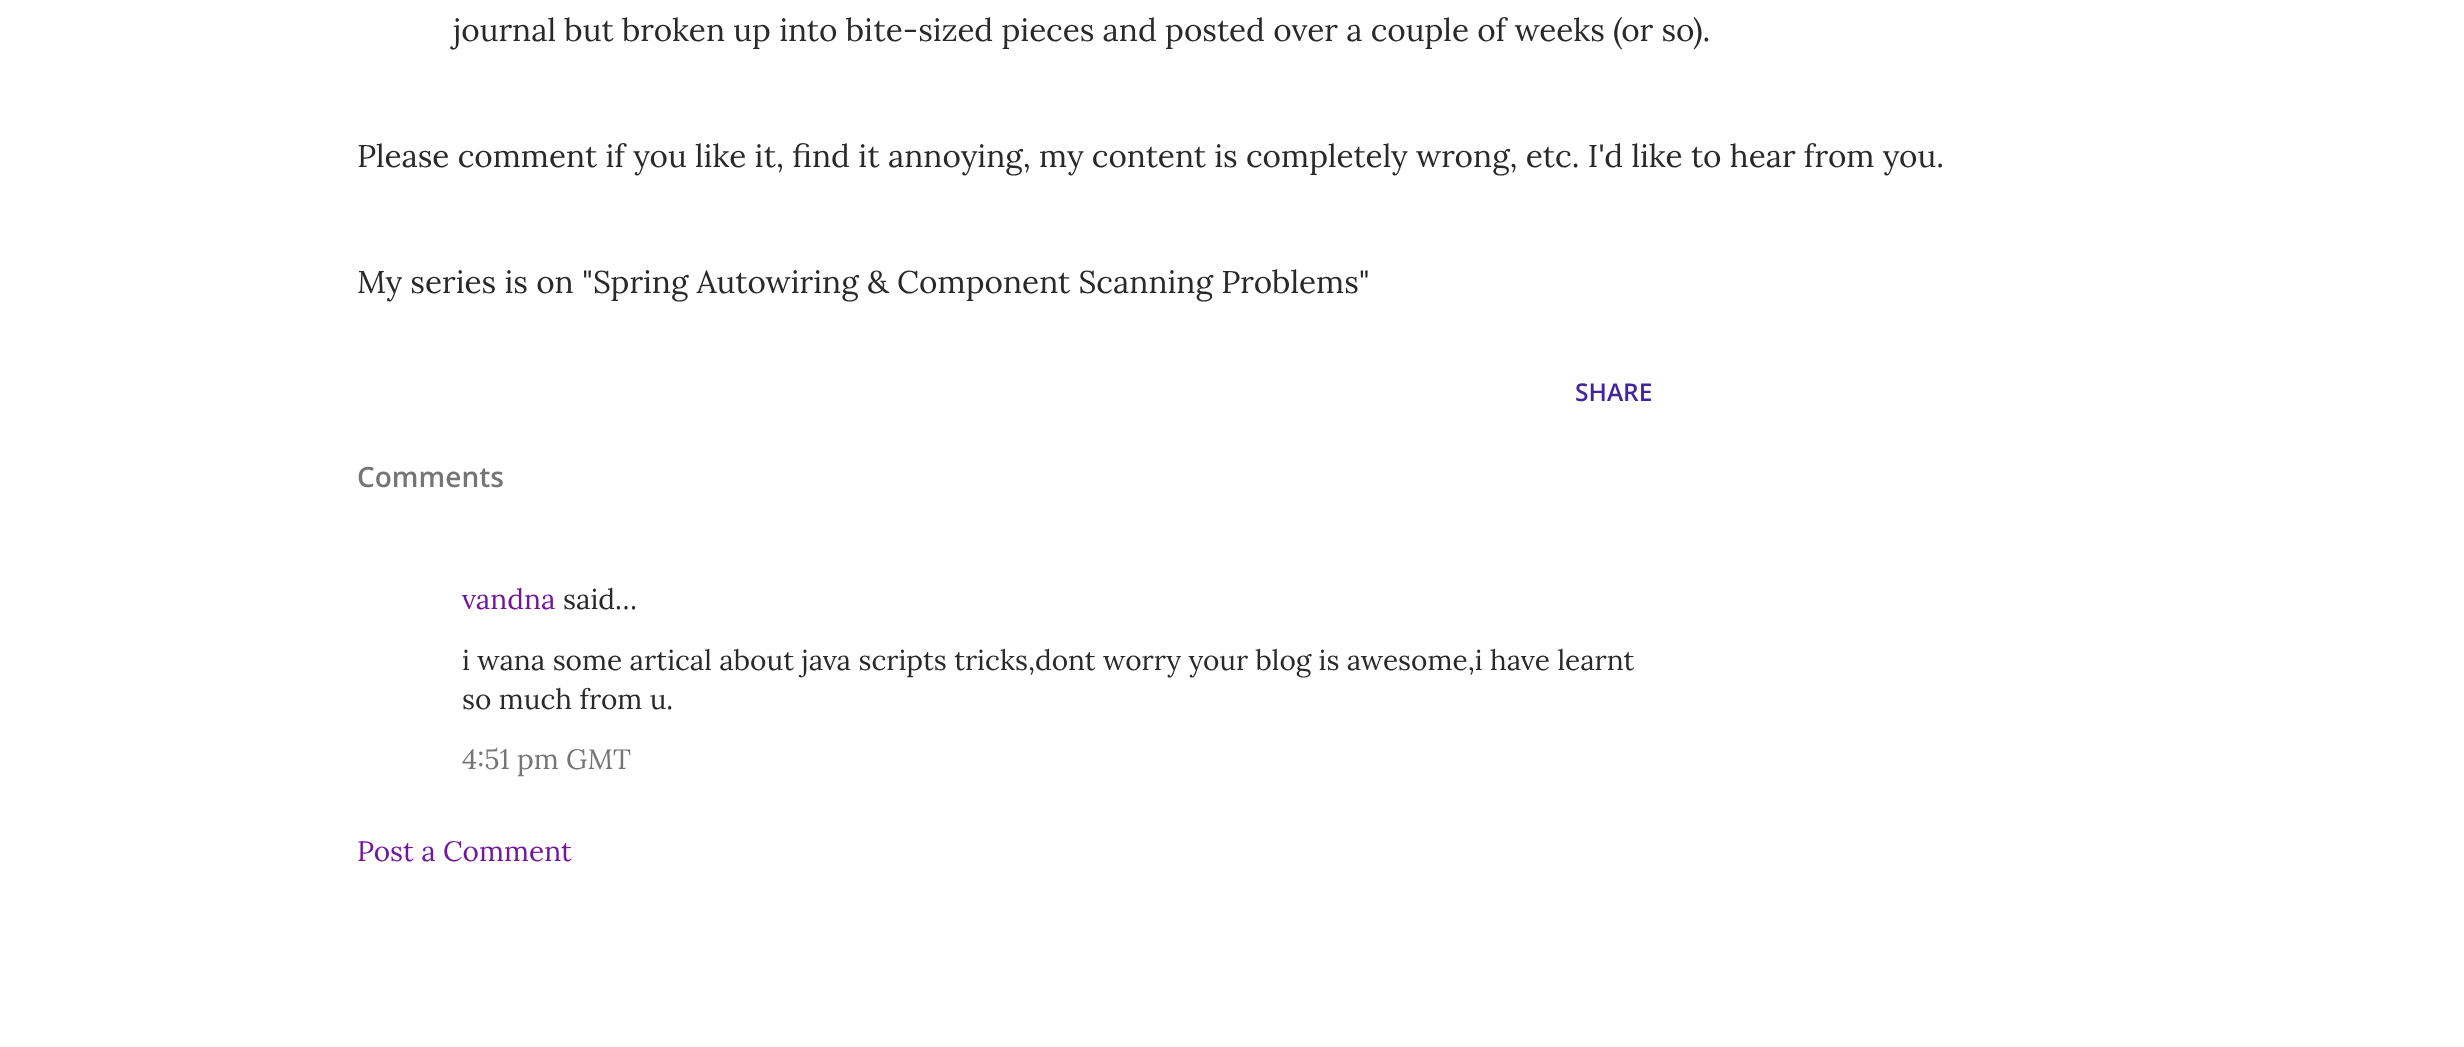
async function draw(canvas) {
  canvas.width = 2464;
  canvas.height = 1047;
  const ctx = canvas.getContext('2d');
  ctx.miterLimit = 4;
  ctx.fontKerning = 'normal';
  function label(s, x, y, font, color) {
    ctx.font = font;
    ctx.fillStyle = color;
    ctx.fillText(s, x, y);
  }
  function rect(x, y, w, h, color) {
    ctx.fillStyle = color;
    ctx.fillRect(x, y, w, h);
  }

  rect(0, 0, 2464, 1047, '#fff');
  label('journal but broken up into bite-sized pieces and posted over a couple of weeks (or so).', 453, 41, '31.5px Lora', '#292929');
  label('Please comment if you like it, find it annoying, my content is completely wrong, etc. I\'d like to hear from you.', 357, 167, '31.5px Lora', '#292929');
  label('My series is on "Spring Autowiring & Component Scanning Problems"', 357, 293, '31.5px Lora', '#292929');
  label('SHARE', 1575, 401, '600 24.5px Open Sans', '#4224a0');
  label('Comments', 357, 487, '600 28px Open Sans', '#757575');
  label('vandna', 462, 609, '28px Lora', '#72179d');
  label('said…', 563, 609, '28px Lora', '#292929');
  label('i wana some artical about java scripts tricks,dont worry your blog is awesome,i have learnt', 462, 670, '28px Lora', '#292929');
  label('so much from u.', 462, 709, '28px Lora', '#292929');
  label('4:51 pm GMT', 462, 769, '28px Lora', '#757575');
  label('Post a Comment', 357, 861, '28px Lora', '#72179d');
}

draw(document.querySelector('canvas'));
